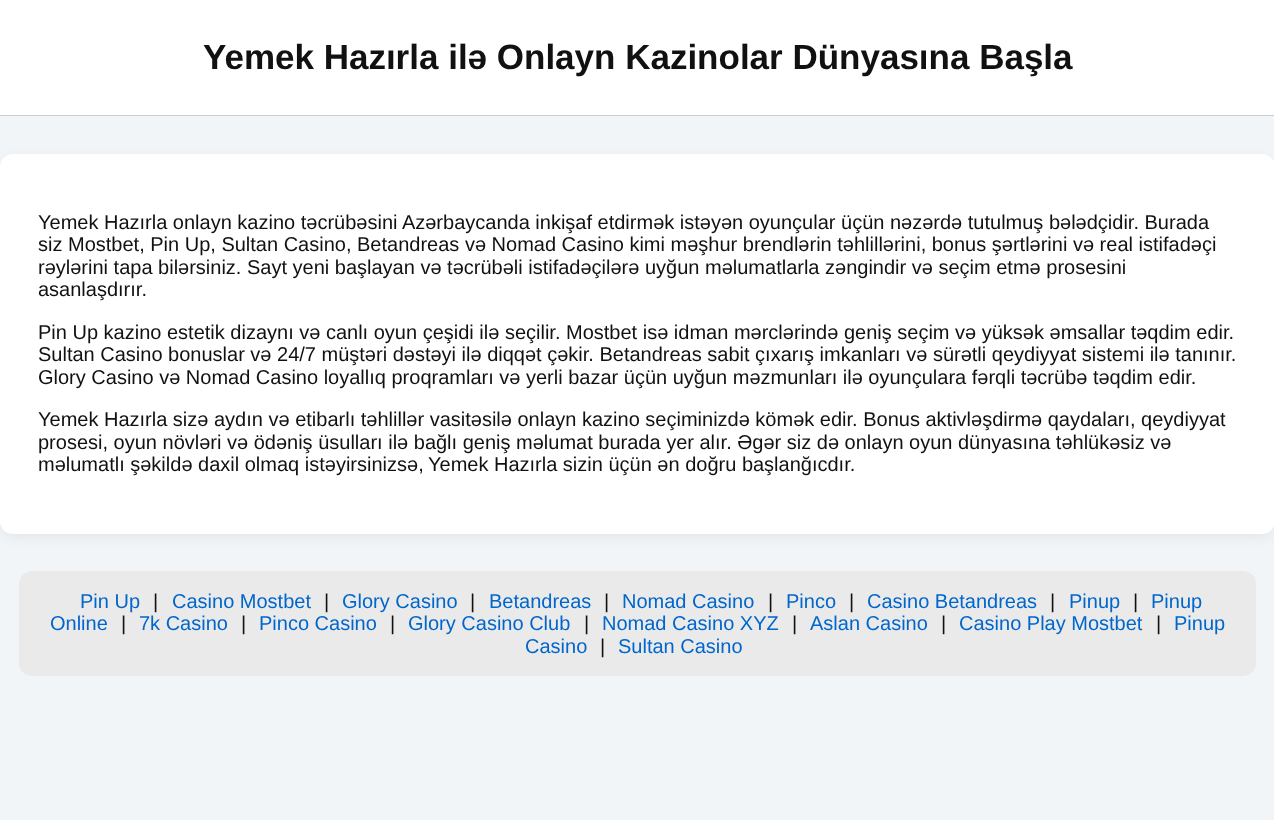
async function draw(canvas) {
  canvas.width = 1274;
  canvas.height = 820;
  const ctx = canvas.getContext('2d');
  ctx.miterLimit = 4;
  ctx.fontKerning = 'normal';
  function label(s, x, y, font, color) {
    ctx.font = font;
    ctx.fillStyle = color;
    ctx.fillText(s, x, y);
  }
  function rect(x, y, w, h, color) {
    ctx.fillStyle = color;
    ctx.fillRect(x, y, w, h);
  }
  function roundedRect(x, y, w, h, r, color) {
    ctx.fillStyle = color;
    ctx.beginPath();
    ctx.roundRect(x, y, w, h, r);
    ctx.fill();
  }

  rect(0, 0, 1274, 820, '#f2f5f8');
  rect(0, 0, 1274, 115, '#fff');
  rect(0, 115, 1274, 1, '#ccc');
  label('Yemek Hazırla ilə Onlayn Kazinolar Dünyasına Başla', 203, 69, 'bold 35px Liberation Sans', '#111');
  ctx.fillStyle = '#0000000d';
  ctx.filter = 'blur(6px)';
  ctx.beginPath();
  ctx.roundRect(0, 158, 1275, 380, 13);
  ctx.fill();
  ctx.filter = 'none';
  roundedRect(0, 154, 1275, 380, 13, '#fff');
  label('Yemek Hazırla onlayn kazino təcrübəsini Azərbaycanda inkişaf etdirmək istəyən oyunçular üçün nəzərdə tutulmuş bələdçidir. Burada', 38, 229, '20px Liberation Sans', '#111');
  label('siz Mostbet, Pin Up, Sultan Casino, Betandreas və Nomad Casino kimi məşhur brendlərin təhlillərini, bonus şərtlərini və real istifadəçi', 38, 251, '20px Liberation Sans', '#111');
  label('rəylərini tapa bilərsiniz. Sayt yeni başlayan və təcrübəli istifadəçilərə uyğun məlumatlarla zəngindir və seçim etmə prosesini', 38, 274, '20px Liberation Sans', '#111');
  label('asanlaşdırır.', 38, 296, '20px Liberation Sans', '#111');
  label('Pin Up kazino estetik dizaynı və canlı oyun çeşidi ilə seçilir. Mostbet isə idman mərclərində geniş seçim və yüksək əmsallar təqdim edir.', 38, 339, '20px Liberation Sans', '#111');
  label('Sultan Casino bonuslar və 24/7 müştəri dəstəyi ilə diqqət çəkir. Betandreas sabit çıxarış imkanları və sürətli qeydiyyat sistemi ilə tanınır.', 38, 361, '20px Liberation Sans', '#111');
  label('Glory Casino və Nomad Casino loyallıq proqramları və yerli bazar üçün uyğun məzmunları ilə oyunçulara fərqli təcrübə təqdim edir.', 38, 384, '20px Liberation Sans', '#111');
  label('Yemek Hazırla sizə aydın və etibarlı təhlillər vasitəsilə onlayn kazino seçiminizdə kömək edir. Bonus aktivləşdirmə qaydaları, qeydiyyat', 38, 426, '20px Liberation Sans', '#111');
  label('prosesi, oyun növləri və ödəniş üsulları ilə bağlı geniş məlumat burada yer alır. Əgər siz də onlayn oyun dünyasına təhlükəsiz və', 38, 449, '20px Liberation Sans', '#111');
  label('məlumatlı şəkildə daxil olmaq istəyirsinizsə,', 38, 471, '20px Liberation Sans', '#111');
  label('Yemek Hazırla sizin üçün ən doğru başlanğıcdır.', 428, 471, '20px Liberation Sans', '#111');
  roundedRect(19, 571, 1237, 105, 13, '#eaeaea');
  label('Pin Up', 80, 608, '20px Liberation Sans', '#06c');
  label('|', 153, 608, '20px Liberation Sans', '#111');
  label('Casino Mostbet', 172, 608, '20px Liberation Sans', '#06c');
  label('|', 324, 608, '20px Liberation Sans', '#111');
  label('Glory Casino', 342, 608, '20px Liberation Sans', '#06c');
  label('|', 470, 608, '20px Liberation Sans', '#111');
  label('Betandreas', 489, 608, '20px Liberation Sans', '#06c');
  label('|', 604, 608, '20px Liberation Sans', '#111');
  label('Nomad Casino', 622, 608, '20px Liberation Sans', '#06c');
  label('|', 768, 608, '20px Liberation Sans', '#111');
  label('Pinco', 786, 608, '20px Liberation Sans', '#06c');
  label('|', 849, 608, '20px Liberation Sans', '#111');
  label('Casino Betandreas', 867, 608, '20px Liberation Sans', '#06c');
  label('|', 1050, 608, '20px Liberation Sans', '#111');
  label('Pinup', 1069, 608, '20px Liberation Sans', '#06c');
  label('|', 1133, 608, '20px Liberation Sans', '#111');
  label('Pinup', 1151, 608, '20px Liberation Sans', '#06c');
  label('Online', 50, 630, '20px Liberation Sans', '#06c');
  label('|', 121, 630, '20px Liberation Sans', '#111');
  label('7k Casino', 139, 630, '20px Liberation Sans', '#06c');
  label('|', 241, 630, '20px Liberation Sans', '#111');
  label('Pinco Casino', 259, 630, '20px Liberation Sans', '#06c');
  label('|', 390, 630, '20px Liberation Sans', '#111');
  label('Glory Casino Club', 408, 630, '20px Liberation Sans', '#06c');
  label('|', 584, 630, '20px Liberation Sans', '#111');
  label('Nomad Casino XYZ', 602, 630, '20px Liberation Sans', '#06c');
  label('|', 792, 630, '20px Liberation Sans', '#111');
  label('Aslan Casino', 810, 630, '20px Liberation Sans', '#06c');
  label('|', 941, 630, '20px Liberation Sans', '#111');
  label('Casino Play Mostbet', 959, 630, '20px Liberation Sans', '#06c');
  label('|', 1156, 630, '20px Liberation Sans', '#111');
  label('Pinup', 1174, 630, '20px Liberation Sans', '#06c');
  label('Casino', 525, 653, '20px Liberation Sans', '#06c');
  label('|', 600, 653, '20px Liberation Sans', '#111');
  label('Sultan Casino', 618, 653, '20px Liberation Sans', '#06c');
}

draw(document.querySelector('canvas'));
